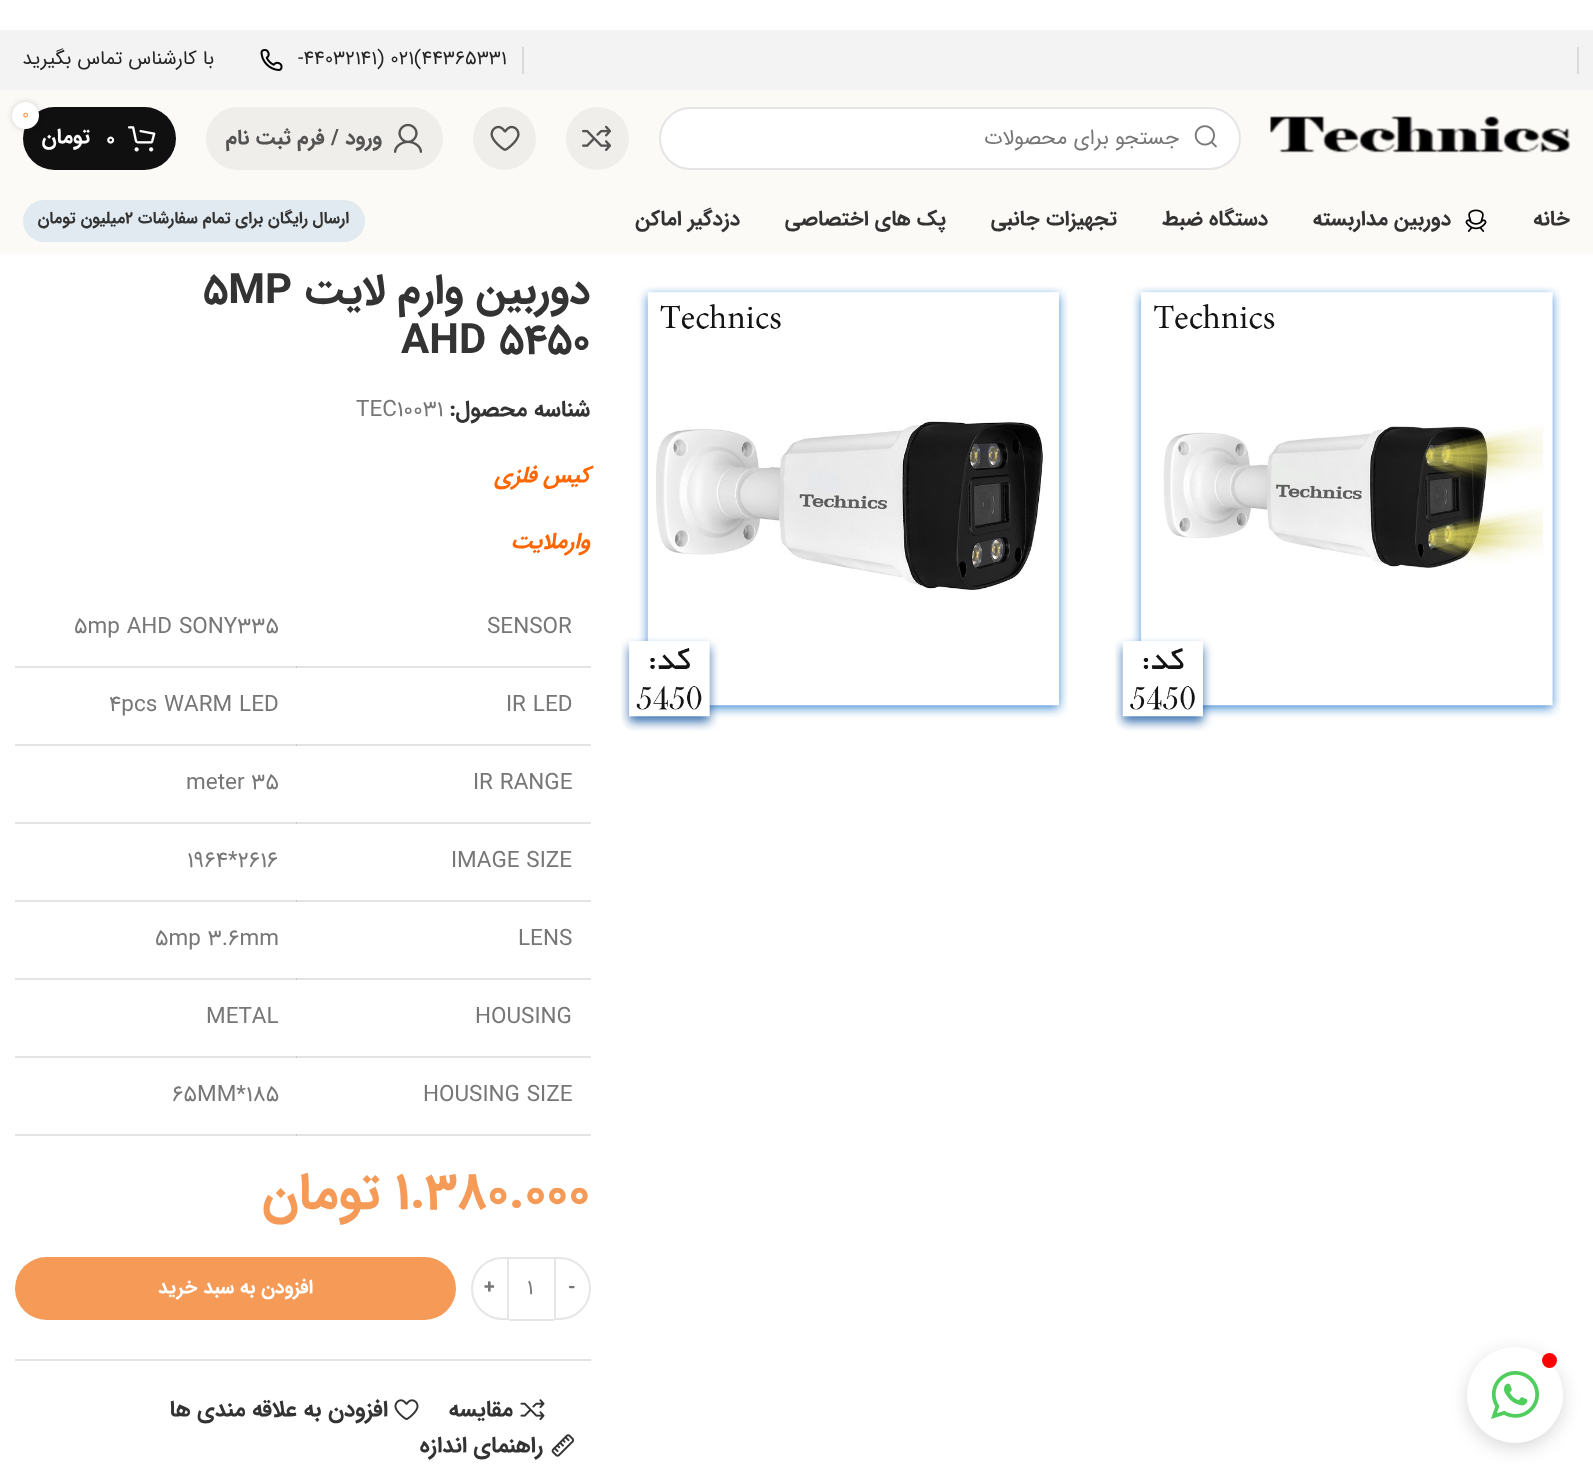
async function draw(canvas) {
  canvas.width = 1593;
  canvas.height = 1473;
  const ctx = canvas.getContext('2d');
  ctx.miterLimit = 4;
  ctx.fontKerning = 'normal';
  function label(s, x, y, font, color) {
    ctx.font = font;
    ctx.fillStyle = color;
    ctx.fillText(s, x, y);
  }
  function rect(x, y, w, h, color) {
    ctx.fillStyle = color;
    ctx.fillRect(x, y, w, h);
  }
  function roundedRect(x, y, w, h, r, color) {
    ctx.fillStyle = color;
    ctx.beginPath();
    ctx.roundRect(x, y, w, h, r);
    ctx.fill();
  }
  async function image(src, x, y, w, h) {
    const img = new Image();
    img.src = src;
    await img.decode();
    ctx.drawImage(img, x, y, w, h);
  }

  rect(0, 0, 1593, 1473, '#fff');
  rect(0, 30, 1593, 60, '#f3f3f3');
  rect(1577, 47, 2, 27, '#d9d9d9');
  rect(522, 47, 2, 27, '#d9d9d9');
  label('-44032141) 021(44365331', 298, 64, '19.5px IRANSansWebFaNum', '#242424');
  await image('assets/img1.png', 260, 49, 23, 22);
  ctx.direction = 'rtl';
  label('با کارشناس تماس بگیرید', 214, 64, '19.5px IRANSansWebFaNum', '#242424');
  rect(0, 90, 1593, 164, '#fbfaf7');
  await image('assets/img2.png', 1270, 116, 301, 37);
  roundedRect(659, 107, 582, 63, 31.5, '#fff');
  ctx.beginPath();
  ctx.roundRect(660, 108, 580, 61, 30.5);
  ctx.strokeStyle = '#0000001a';
  ctx.lineWidth = 2;
  ctx.stroke();
  await image('assets/img3.png', 1194, 125, 23, 23);
  label('جستجو برای محصولات', 1179, 144, '21px IRANSansWebFaNum', '#777');
  ctx.fillStyle = '#efeeeb';
  ctx.beginPath();
  ctx.arc(597.5, 138.5, 31.5, 0, 2 * Math.PI);
  ctx.fill();
  await image('assets/img4.png', 582, 125, 29, 26);
  ctx.beginPath();
  ctx.arc(504.5, 138.5, 31.5, 0, 2 * Math.PI);
  ctx.fill();
  await image('assets/img5.png', 490, 125, 30, 26);
  roundedRect(206, 107, 237, 63, 31.5, '#efeeeb');
  await image('assets/img6.png', 394, 123, 28, 30);
  label('ورود / فرم ثبت نام', 382, 144, 'bold 21px IRANSansWebFaNum', '#535352');
  roundedRect(23, 107, 153, 63, 31.5, '#101010');
  ctx.fillStyle = '#0000002b';
  ctx.filter = 'blur(3px)';
  ctx.beginPath();
  ctx.roundRect(12, 102, 27, 27, 13.5);
  ctx.fill();
  ctx.filter = 'none';
  ctx.fillStyle = '#fff';
  ctx.beginPath();
  ctx.arc(25.5, 115.5, 13.5, 0, 2 * Math.PI);
  ctx.fill();
  ctx.direction = 'ltr';
  label('0', 22, 119, '16.5px IRANSansWebFaNum', '#f59a57');
  await image('assets/img7.png', 128, 126, 28, 26);
  label('0', 106, 145, 'bold 21px IRANSansWebFaNum', '#fff');
  ctx.direction = 'rtl';
  label('تومان', 90, 143, 'bold 21px IRANSansWebFaNum', '#fff');
  label('خانه', 1570, 225, 'bold 21px IRANSansWebFaNum', '#333');
  await image('assets/img8.png', 1465, 209, 22, 23);
  label('دوربین مداربسته', 1451, 225, 'bold 21px IRANSansWebFaNum', '#333');
  label('دستگاه ضبط', 1268, 225, 'bold 21px IRANSansWebFaNum', '#333');
  label('تجهیزات جانبی', 1117, 225, 'bold 21px IRANSansWebFaNum', '#333');
  label('پک های اختصاصی', 946, 225, 'bold 21px IRANSansWebFaNum', '#333');
  label('دزدگیر اماکن', 740, 225, 'bold 21px IRANSansWebFaNum', '#333');
  roundedRect(23, 200, 342, 42, 21, '#e0eaf0');
  label('ارسال رایگان برای تمام سفارشات', 349, 223, 'bold 16.5px IRANSansWebFaNum', '#333');
  label('میلیون تومان', 125, 223, 'bold 16.5px IRANSansWebFaNum', '#333');
  ctx.direction = 'ltr';
  label('2', 125, 223, 'bold 16.5px IRANSansWebFaNum', '#333');
  await image('assets/img9.png', 1115, 286, 446, 445);
  await image('assets/img10.png', 621, 286, 447, 445);
  ctx.direction = 'rtl';
  label('دوربین وارم لایت', 590, 303, 'bold 42px IRANSansWebFaNum', '#333');
  ctx.direction = 'ltr';
  label('5MP', 203, 303, 'bold 42px IRANSansWebFaNum', '#333');
  label('AHD 5450', 401, 353, 'bold 42px IRANSansWebFaNum', '#333');
  ctx.direction = 'rtl';
  label('شناسه محصول:', 590, 416, 'bold 22.5px IRANSansWebFaNum', '#333');
  ctx.direction = 'ltr';
  label('TEC10031', 356, 416, '22.5px IRANSansWebFaNum', '#777');
  ctx.direction = 'rtl';
  label('کیس فلزی', 590, 482, 'italic bold 22.5px IRANSansWebFaNum', '#f60');
  label('وارملایت', 590, 548, 'italic bold 22.5px IRANSansWebFaNum', '#f60');
  rect(15, 666, 282, 2, '#e4e4e4');
  rect(296, 666, 295, 2, '#0000001c');
  ctx.direction = 'ltr';
  label('SENSOR', 487, 633, '22.5px IRANSansWebFaNum', '#777');
  label('5mp AHD SONY335', 74, 633, '22.5px IRANSansWebFaNum', '#777');
  rect(15, 744, 282, 2, '#e4e4e4');
  rect(296, 744, 295, 2, '#0000001c');
  label('IR LED', 506, 711, '22.5px IRANSansWebFaNum', '#777');
  label('4pcs WARM LED', 109, 711, '22.5px IRANSansWebFaNum', '#777');
  rect(15, 822, 282, 2, '#e4e4e4');
  rect(296, 822, 295, 2, '#0000001c');
  label('IR RANGE', 473, 789, '22.5px IRANSansWebFaNum', '#777');
  label('meter 35', 186, 789, '22.5px IRANSansWebFaNum', '#777');
  rect(15, 900, 282, 2, '#e4e4e4');
  rect(296, 900, 295, 2, '#0000001c');
  label('IMAGE SIZE', 451, 867, '22.5px IRANSansWebFaNum', '#777');
  label('1964*2616', 187, 867, '22.5px IRANSansWebFaNum', '#777');
  rect(15, 978, 282, 2, '#e4e4e4');
  rect(296, 978, 295, 2, '#0000001c');
  label('LENS', 518, 945, '22.5px IRANSansWebFaNum', '#777');
  label('5mp 3.6mm', 155, 945, '22.5px IRANSansWebFaNum', '#777');
  rect(15, 1056, 282, 2, '#e4e4e4');
  rect(296, 1056, 295, 2, '#0000001c');
  label('HOUSING', 475, 1023, '22.5px IRANSansWebFaNum', '#777');
  label('METAL', 206, 1023, '22.5px IRANSansWebFaNum', '#777');
  rect(15, 1134, 282, 2, '#e4e4e4');
  rect(296, 1134, 295, 2, '#0000001c');
  label('HOUSING SIZE', 423, 1101, '22.5px IRANSansWebFaNum', '#777');
  label('65MM*185', 172, 1101, '22.5px IRANSansWebFaNum', '#777');
  label('1.380.000', 395, 1208, 'bold 51px IRANSansWebFaNum', '#f59a57');
  ctx.direction = 'rtl';
  label('تومان', 380, 1208, 'bold 51px IRANSansWebFaNum', '#f59a57');
  ctx.beginPath();
  ctx.roundRect(555, 1258, 35, 61, [0, 30.5, 30.5, 0]);
  ctx.strokeStyle = '#e6e6e6';
  ctx.stroke();
  ctx.direction = 'ltr';
  label('-', 568, 1293, 'bold 19.5px IRANSansWebFaNum', '#777');
  rect(509, 1257, 45, 2, '#e6e6e6');
  rect(509, 1319, 45, 2, '#e6e6e6');
  label('1', 527, 1294, '21px IRANSansWebFaNum', '#777');
  ctx.beginPath();
  ctx.roundRect(472, 1258, 36, 61, [30.5, 0, 0, 30.5]);
  ctx.stroke();
  label('+', 484, 1293, 'bold 19.5px IRANSansWebFaNum', '#777');
  roundedRect(15, 1257, 441, 63, 31.5, '#f59a57');
  ctx.direction = 'rtl';
  label('افزودن به سبد خرید', 313, 1293, 'bold 19.5px IRANSansWebFaNum', '#fff');
  rect(15, 1359, 576, 2, '#e3e3e3');
  await image('assets/img11.png', 520, 1399, 25, 22);
  label('مقایسه', 513, 1416, 'bold 22.5px IRANSansWebFaNum', '#333');
  await image('assets/img12.png', 394, 1399, 25, 21);
  label('افزودن به علاقه مندی ها', 388, 1416, 'bold 22.5px IRANSansWebFaNum', '#333');
  await image('assets/img13.png', 551, 1434, 24, 23);
  label('راهنمای اندازه', 543, 1452, 'bold 22.5px IRANSansWebFaNum', '#333');
  ctx.fillStyle = '#00000026';
  ctx.filter = 'blur(9px)';
  ctx.beginPath();
  ctx.roundRect(1467, 1352, 96, 96, 48);
  ctx.fill();
  ctx.filter = 'none';
  ctx.fillStyle = '#fff';
  ctx.beginPath();
  ctx.arc(1515, 1395, 48, 0, 2 * Math.PI);
  ctx.fill();
  ctx.fillStyle = '#f00';
  ctx.beginPath();
  ctx.arc(1549.5, 1360.5, 7.5, 0, 2 * Math.PI);
  ctx.fill();
  await image('assets/img14.png', 1491, 1371, 48, 48);
}

draw(document.querySelector('canvas'));
